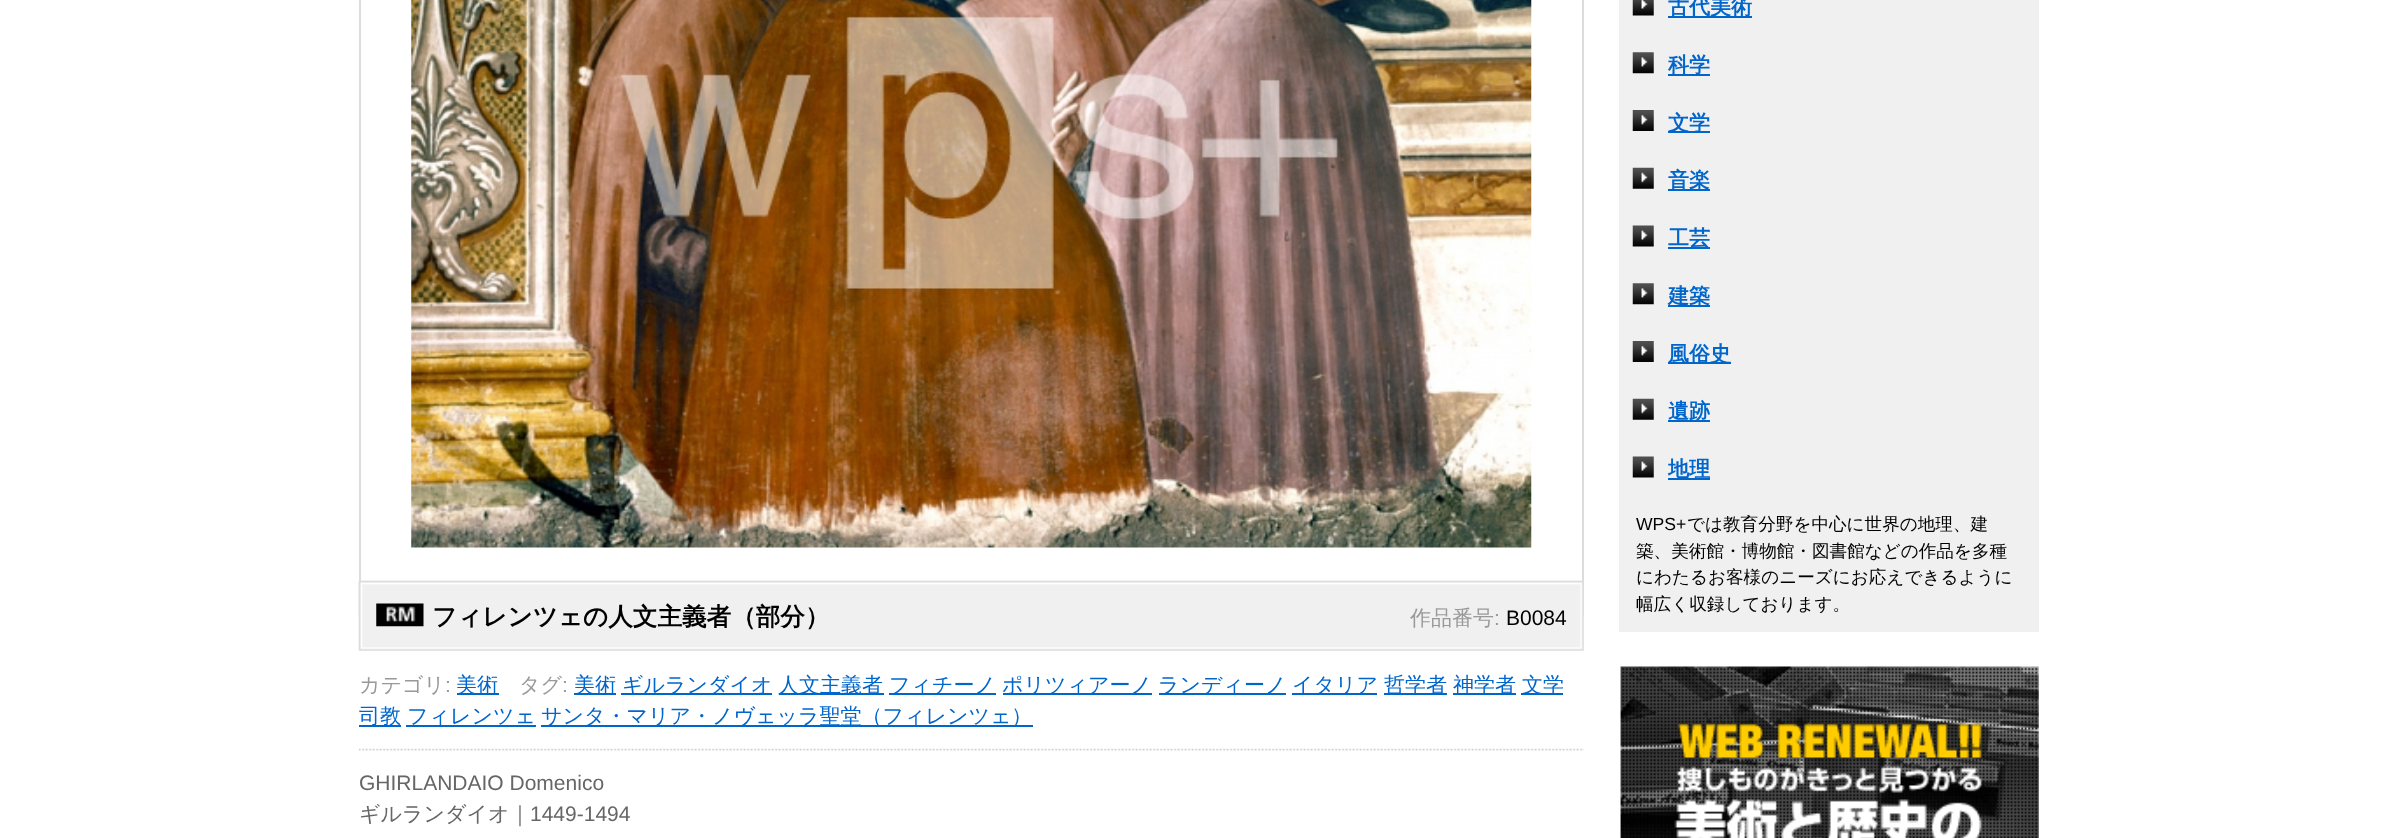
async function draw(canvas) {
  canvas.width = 2396;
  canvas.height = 838;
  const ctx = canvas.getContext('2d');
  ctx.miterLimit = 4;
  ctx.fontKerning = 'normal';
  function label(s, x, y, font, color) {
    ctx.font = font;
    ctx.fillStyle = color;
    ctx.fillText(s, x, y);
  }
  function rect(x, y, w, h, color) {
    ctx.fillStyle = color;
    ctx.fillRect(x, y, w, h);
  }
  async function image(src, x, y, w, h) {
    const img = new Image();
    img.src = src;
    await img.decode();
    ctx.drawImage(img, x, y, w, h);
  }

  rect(0, 0, 2396, 838, '#fff');
  rect(1619, 0, 420, 632, '#f0f0f0');
  await image('assets/img1.png', 1632, 0, 22, 16);
  rect(1668, 16, 84, 2, '#06c');
  label('古代美術', 1668, 14, 'bold 21px WenQuanYi Zen Hei', '#06c');
  await image('assets/img2.png', 1632, 52, 22, 22);
  rect(1668, 74, 42, 2, '#06c');
  label('科学', 1668, 72, 'bold 21px WenQuanYi Zen Hei', '#06c');
  await image('assets/img3.png', 1632, 110, 22, 21);
  rect(1668, 131, 42, 2, '#06c');
  label('文学', 1668, 130, 'bold 21px WenQuanYi Zen Hei', '#06c');
  await image('assets/img4.png', 1632, 167, 22, 22);
  rect(1668, 189, 42, 2, '#06c');
  label('音楽', 1668, 187, 'bold 21px WenQuanYi Zen Hei', '#06c');
  await image('assets/img5.png', 1632, 225, 22, 22);
  rect(1668, 247, 42, 2, '#06c');
  label('工芸', 1668, 245, 'bold 21px WenQuanYi Zen Hei', '#06c');
  await image('assets/img2.png', 1632, 283, 22, 22);
  rect(1668, 305, 42, 2, '#06c');
  label('建築', 1668, 303, 'bold 21px WenQuanYi Zen Hei', '#06c');
  await image('assets/img3.png', 1632, 341, 22, 21);
  rect(1668, 362, 63, 2, '#06c');
  label('風俗史', 1668, 361, 'bold 21px WenQuanYi Zen Hei', '#06c');
  await image('assets/img4.png', 1632, 398, 22, 22);
  rect(1668, 420, 42, 2, '#06c');
  label('遺跡', 1668, 418, 'bold 21px WenQuanYi Zen Hei', '#06c');
  await image('assets/img5.png', 1632, 456, 22, 22);
  rect(1668, 478, 42, 2, '#06c');
  label('地理', 1668, 476, 'bold 21px WenQuanYi Zen Hei', '#06c');
  label('WPS+', 1636, 530, '17.6px Liberation Sans', '#000');
  label('では教育分野を中心に世界の地理、建', 1687, 530, '500 17.6px WenQuanYi Zen Hei', '#000');
  label('築、美術館・博物館・図書館などの作品を多種', 1636, 557, '500 17.6px WenQuanYi Zen Hei', '#000');
  label('にわたるお客様のニーズにお応えできるように', 1636, 583, '500 17.6px WenQuanYi Zen Hei', '#000');
  label('幅広く収録しております。', 1636, 610, '500 17.6px WenQuanYi Zen Hei', '#000');
  await image('assets/img6.png', 1620, 666, 419, 172);
  rect(1582, 0, 2, 583, '#dcdcdc');
  rect(359, 0, 2, 583, '#dcdcdc');
  await image('assets/img7.png', 411, 0, 1121, 548);
  await image('assets/img8.png', 358, 580, 1226, 71);
  await image('assets/img9.png', 358, 580, 1226, 36);
  await image('assets/img10.png', 376, 603, 48, 24);
  label('フィレンツェの人文主義者（部分）', 432, 625, 'bold 24.6px WenQuanYi Zen Hei', '#000');
  label('作品番号', 1410, 625, '500 21px WenQuanYi Zen Hei', '#999');
  label(':', 1494, 625, '21px Liberation Sans', '#999');
  label('B0084', 1506, 625, '21px Liberation Sans', '#000');
  label('カテゴリ', 359, 692, '500 21px WenQuanYi Zen Hei', '#999');
  label(':', 445, 692, '21px Liberation Sans', '#999');
  rect(457, 693, 42, 2, '#06c');
  label('美術', 456, 692, '500 21px WenQuanYi Zen Hei', '#06c');
  label('タグ', 519, 692, '500 21px WenQuanYi Zen Hei', '#999');
  label(':', 562, 692, '21px Liberation Sans', '#999');
  rect(574, 693, 42, 2, '#06c');
  label('美術', 574, 692, '500 21px WenQuanYi Zen Hei', '#06c');
  rect(621, 693, 151, 2, '#06c');
  label('ギルランダイオ', 622, 692, '500 21px WenQuanYi Zen Hei', '#06c');
  rect(779, 693, 105, 2, '#06c');
  label('人文主義者', 778, 692, '500 21px WenQuanYi Zen Hei', '#06c');
  rect(889, 693, 107, 2, '#06c');
  label('フィチーノ', 889, 692, '500 21px WenQuanYi Zen Hei', '#06c');
  rect(1003, 693, 149, 2, '#06c');
  label('ポリツィアーノ', 1002, 692, '500 21px WenQuanYi Zen Hei', '#06c');
  rect(1159, 693, 127, 2, '#06c');
  label('ランディーノ', 1158, 692, '500 21px WenQuanYi Zen Hei', '#06c');
  rect(1292, 693, 85, 2, '#06c');
  label('イタリア', 1292, 692, '500 21px WenQuanYi Zen Hei', '#06c');
  rect(1384, 693, 63, 2, '#06c');
  label('哲学者', 1384, 692, '500 21px WenQuanYi Zen Hei', '#06c');
  rect(1453, 693, 63, 2, '#06c');
  label('神学者', 1453, 692, '500 21px WenQuanYi Zen Hei', '#06c');
  rect(1521, 693, 42, 2, '#06c');
  label('文学', 1522, 692, '500 21px WenQuanYi Zen Hei', '#06c');
  rect(359, 725, 42, 2, '#06c');
  label('司教', 359, 723, '500 21px WenQuanYi Zen Hei', '#06c');
  rect(406, 725, 130, 2, '#06c');
  label('フィレンツェ', 407, 723, '500 21px WenQuanYi Zen Hei', '#06c');
  rect(541, 725, 492, 2, '#06c');
  label('サンタ・マリア・ノヴェッラ聖堂（フィレンツェ）', 541, 723, '500 21px WenQuanYi Zen Hei', '#06c');
  await image('assets/img11.png', 358, 748, 1226, 3);
  label('GHIRLANDAIO Domenico', 359, 790, '21px Liberation Sans', '#666');
  label('ギルランダイオ｜', 359, 821, '500 21px WenQuanYi Zen Hei', '#666');
  label('1449-1494', 530, 821, '21px Liberation Sans', '#666');
}

draw(document.querySelector('canvas'));
